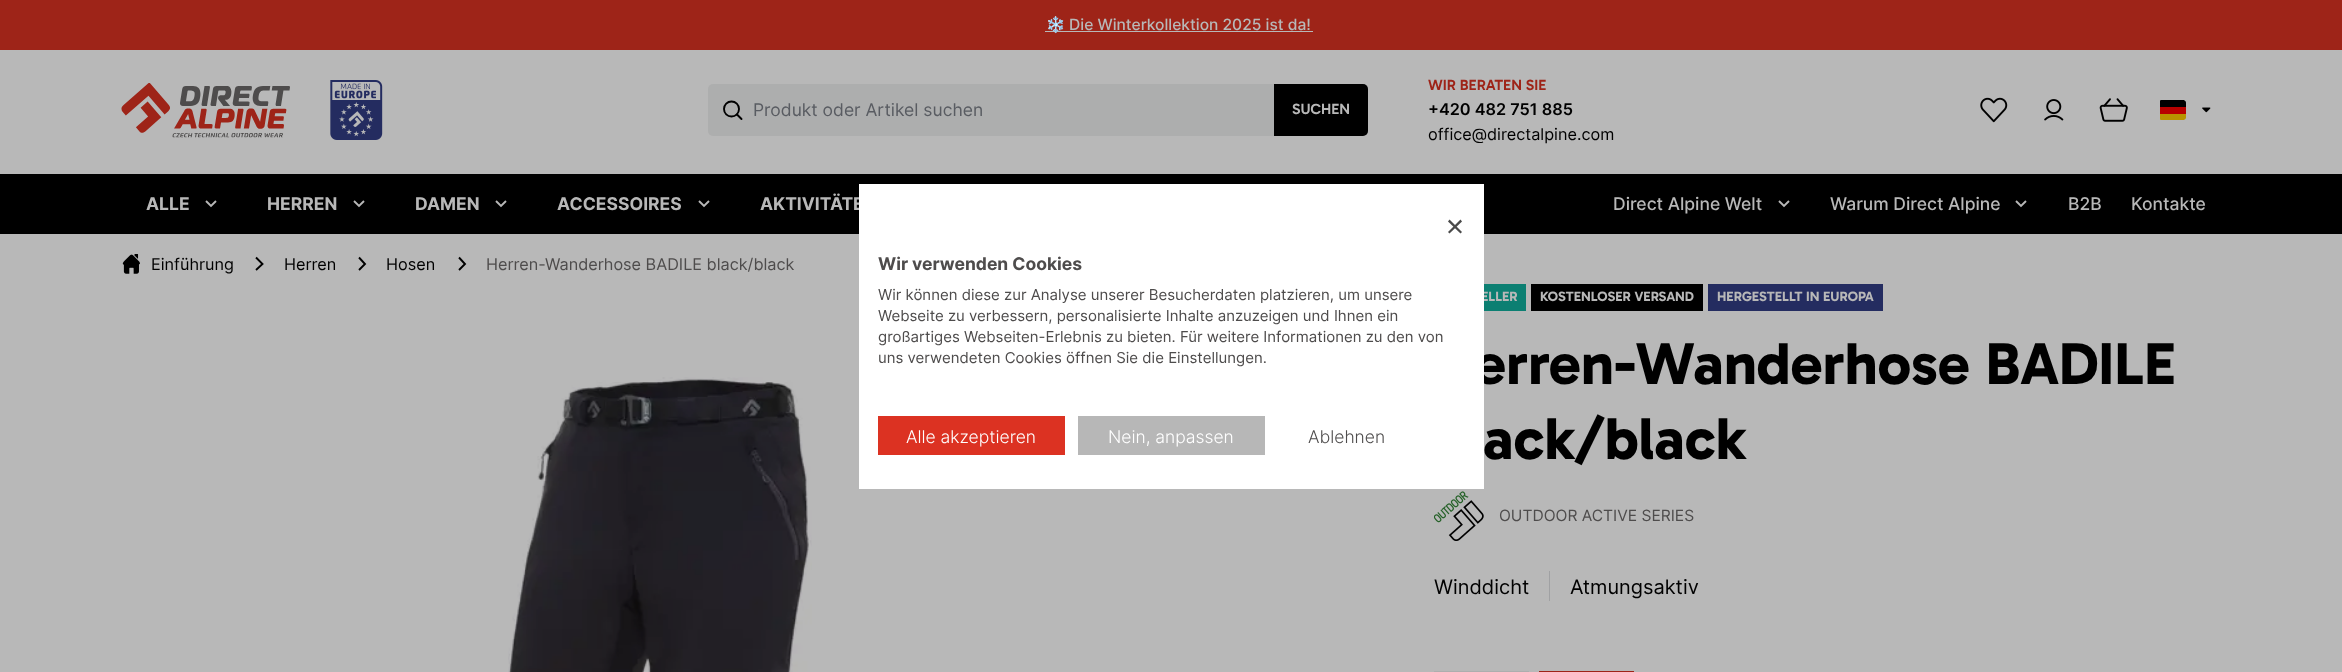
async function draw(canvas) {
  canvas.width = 2342;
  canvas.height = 672;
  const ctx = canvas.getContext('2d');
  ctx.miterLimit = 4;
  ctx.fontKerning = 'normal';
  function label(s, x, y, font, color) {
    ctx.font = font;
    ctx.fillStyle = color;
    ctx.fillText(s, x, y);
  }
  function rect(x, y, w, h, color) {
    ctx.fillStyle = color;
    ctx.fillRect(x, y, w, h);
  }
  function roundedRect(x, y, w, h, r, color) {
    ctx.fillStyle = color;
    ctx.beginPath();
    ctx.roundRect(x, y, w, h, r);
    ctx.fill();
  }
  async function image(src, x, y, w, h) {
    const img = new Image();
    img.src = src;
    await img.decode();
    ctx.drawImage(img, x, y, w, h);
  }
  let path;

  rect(0, 0, 2342, 672, '#b8b8b8');
  rect(0, 0, 2342, 50, '#9e2418');
  rect(1045, 31, 268, 1, '#b8b8b8');
  label('❄️', 1046, 30, '15.6px Noto Color Emoji', '#b8b8b8');
  label('Die Winterkollektion 2025 ist da!', 1069, 30, '500 15.6px Inter', '#b8b8b8');
  await image('assets/img1.png', 121, 83, 169, 55);
  await image('assets/img2.png', 330, 80, 53, 60);
  roundedRect(708, 84, 660, 52, 5, '#adaeae');
  ctx.beginPath();
  ctx.arc(731.5, 109, 7.5, 0, 2 * Math.PI);
  ctx.strokeStyle = '#000';
  ctx.lineWidth = 1.9;
  ctx.stroke();
  path = new Path2D('M737 114.5L741.5 119');
  ctx.lineCap = 'round';
  ctx.stroke(path);
  label('Produkt oder Artikel suchen', 753, 116, '17.5px Inter', '#595c62');
  ctx.fillStyle = '#000';
  ctx.beginPath();
  ctx.roundRect(1274, 84, 94, 52, [0, 5, 5, 0]);
  ctx.fill();
  label('SUCHEN', 1292, 114, '600 15px Gabarito', '#b8b8b8');
  label('WIR BERATEN SIE', 1428, 90, '600 15px Gabarito', '#9e2418');
  label('+420 482 751 885', 1428, 115, '600 16.25px Inter', '#000');
  label('office@directalpine.com', 1428, 140, '16.25px Inter', '#000');
  await image('assets/img3.png', 1980, 97, 28, 26);
  await image('assets/img4.png', 2044, 99, 20, 22);
  await image('assets/img5.png', 2099, 98, 29, 24);
  ctx.save();
  ctx.beginPath();
  ctx.roundRect(2159, 100, 27, 20, 2.5);
  ctx.clip();
  ctx.fillStyle = '#b89300';
  ctx.beginPath();
  ctx.roundRect(2160, 114, 26, 6, [0, 0, 2.5, 0]);
  ctx.fill();
  ctx.fillStyle = '#000001';
  ctx.beginPath();
  ctx.roundRect(2160, 100, 26, 7, [0, 2.5, 0, 0]);
  ctx.fill();
  ctx.restore();
  rect(2160, 107, 26, 7, '#b80000');
  await image('assets/img6.png', 2202, 107, 9, 6);
  rect(0, 174, 2342, 60, '#000');
  label('ALLE', 146, 210, 'bold 17.5px Inter', '#b8b8b8');
  path = new Path2D('M206 201L211 206L216 201');
  ctx.strokeStyle = '#b8b8b8';
  ctx.lineCap = 'butt';
  ctx.stroke(path);
  label('HERREN', 267, 210, 'bold 17.5px Inter', '#b8b8b8');
  path = new Path2D('M354 201L359 206L364 201');
  ctx.stroke(path);
  label('DAMEN', 415, 210, 'bold 17.5px Inter', '#b8b8b8');
  path = new Path2D('M496 201L501 206L506 201');
  ctx.stroke(path);
  label('ACCESSOIRES', 557, 210, 'bold 17.5px Inter', '#b8b8b8');
  path = new Path2D('M699 201L704 206L709 201');
  ctx.stroke(path);
  label('AKTIVITÄTE', 760, 210, 'bold 17.5px Inter', '#b8b8b8');
  label('Direct Alpine Welt', 1613, 210, '500 17.5px Inter', '#b8b8b8');
  path = new Path2D('M1779 201L1784 206L1789 201');
  ctx.stroke(path);
  label('Warum Direct Alpine', 1830, 210, '500 17.5px Inter', '#b8b8b8');
  path = new Path2D('M2016 201L2021 206L2026 201');
  ctx.stroke(path);
  label('B2B', 2068, 210, '500 17.5px Inter', '#b8b8b8');
  label('Kontakte', 2131, 210, '500 17.5px Inter', '#b8b8b8');
  rect(1484, 284, 42, 27, '#0c7f72');
  label('ELLER', 1481, 301, 'bold 13.75px Gabarito', '#b8b8b8');
  label('erren-Wanderhose BADILE', 1474, 384, 'bold 60px Gabarito', '#000');
  rect(859, 184, 625, 305, '#fff');
  ctx.fillStyle = '#4a4a4a';
  path = new Path2D('M1460.5 219.5L1462 221.5L1449.5 233.5L1448 232Z');
  ctx.fill(path);
  path = new Path2D('M1448 221.5L1449.5 219.5L1462 232L1460.5 233.5Z');
  ctx.fill(path);
  label('Wir verwenden Cookies', 878, 270, 'bold 17.5px Inter', '#4e4c4c');
  label('Wir können diese zur Analyse unserer Besucherdaten platzieren, um unsere', 878, 300, '15px Inter', '#4e4c4c');
  label('Webseite zu verbessern, personalisierte Inhalte anzuzeigen und Ihnen ein', 878, 321, '15px Inter', '#4e4c4c');
  label('großartiges Webseiten-Erlebnis zu bieten. Für weitere Informationen zu den von', 878, 342, '15px Inter', '#4e4c4c');
  label('uns verwendeten Cookies öffnen Sie die Einstellungen.', 878, 363, '15px Inter', '#4e4c4c');
  rect(878, 416, 187, 39, '#dc3222');
  label('Alle akzeptieren', 906, 443, '300 17.5px Inter', '#fff');
  rect(1078, 416, 187, 39, '#b7b7b7');
  label('Nein, anpassen', 1108, 443, '300 17.5px Inter', '#fff');
  label('Ablehnen', 1308, 443, '300 17.5px Inter', '#4e4c4c');
  await image('assets/img7.png', 122, 254, 18, 20);
  label('Einführung', 151, 270, '16.25px Inter', '#000');
  path = new Path2D('M256 257.5L262.5 264L256 270');
  ctx.strokeStyle = '#000';
  ctx.stroke(path);
  label('Herren', 284, 270, '16.25px Inter', '#000');
  path = new Path2D('M359 257.5L365 264L359 270');
  ctx.stroke(path);
  label('Hosen', 386, 270, '16.25px Inter', '#000');
  path = new Path2D('M459 257.5L465 264L459 270');
  ctx.stroke(path);
  label('Herren-Wanderhose BADILE black/black', 486, 270, '16.25px Inter', '#4e4c4c');
  await image('assets/img8.png', 508, 377, 304, 295);
  rect(1531, 284, 172, 27, '#000');
  label('KOSTENLOSER VERSAND', 1540, 301, 'bold 13.75px Gabarito', '#b8b8b8');
  rect(1708, 284, 175, 27, '#242c60');
  label('HERGESTELLT IN EUROPA', 1717, 301, 'bold 13.75px Gabarito', '#b8b8b8');
  label('ack/black', 1483, 459, 'bold 60px Gabarito', '#000');
  await image('assets/img9.png', 1434, 491, 50, 50);
  label('OUTDOOR ACTIVE SERIES', 1499, 521, '15.6px Inter', '#4e4c4c');
  rect(1549, 571, 1, 30, '#a0a1a3');
  label('Winddicht', 1434, 594, '20px Inter', '#000');
  label('Atmungsaktiv', 1570, 594, '20px Inter', '#000');
  ctx.strokeStyle = '#adaeae';
  ctx.lineWidth = 3;
  ctx.strokeRect(1435.5, 672.5, 92, 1);
  ctx.strokeStyle = '#9e2418';
  ctx.strokeRect(1540.5, 672.5, 92, 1);
}

draw(document.querySelector('canvas'));
